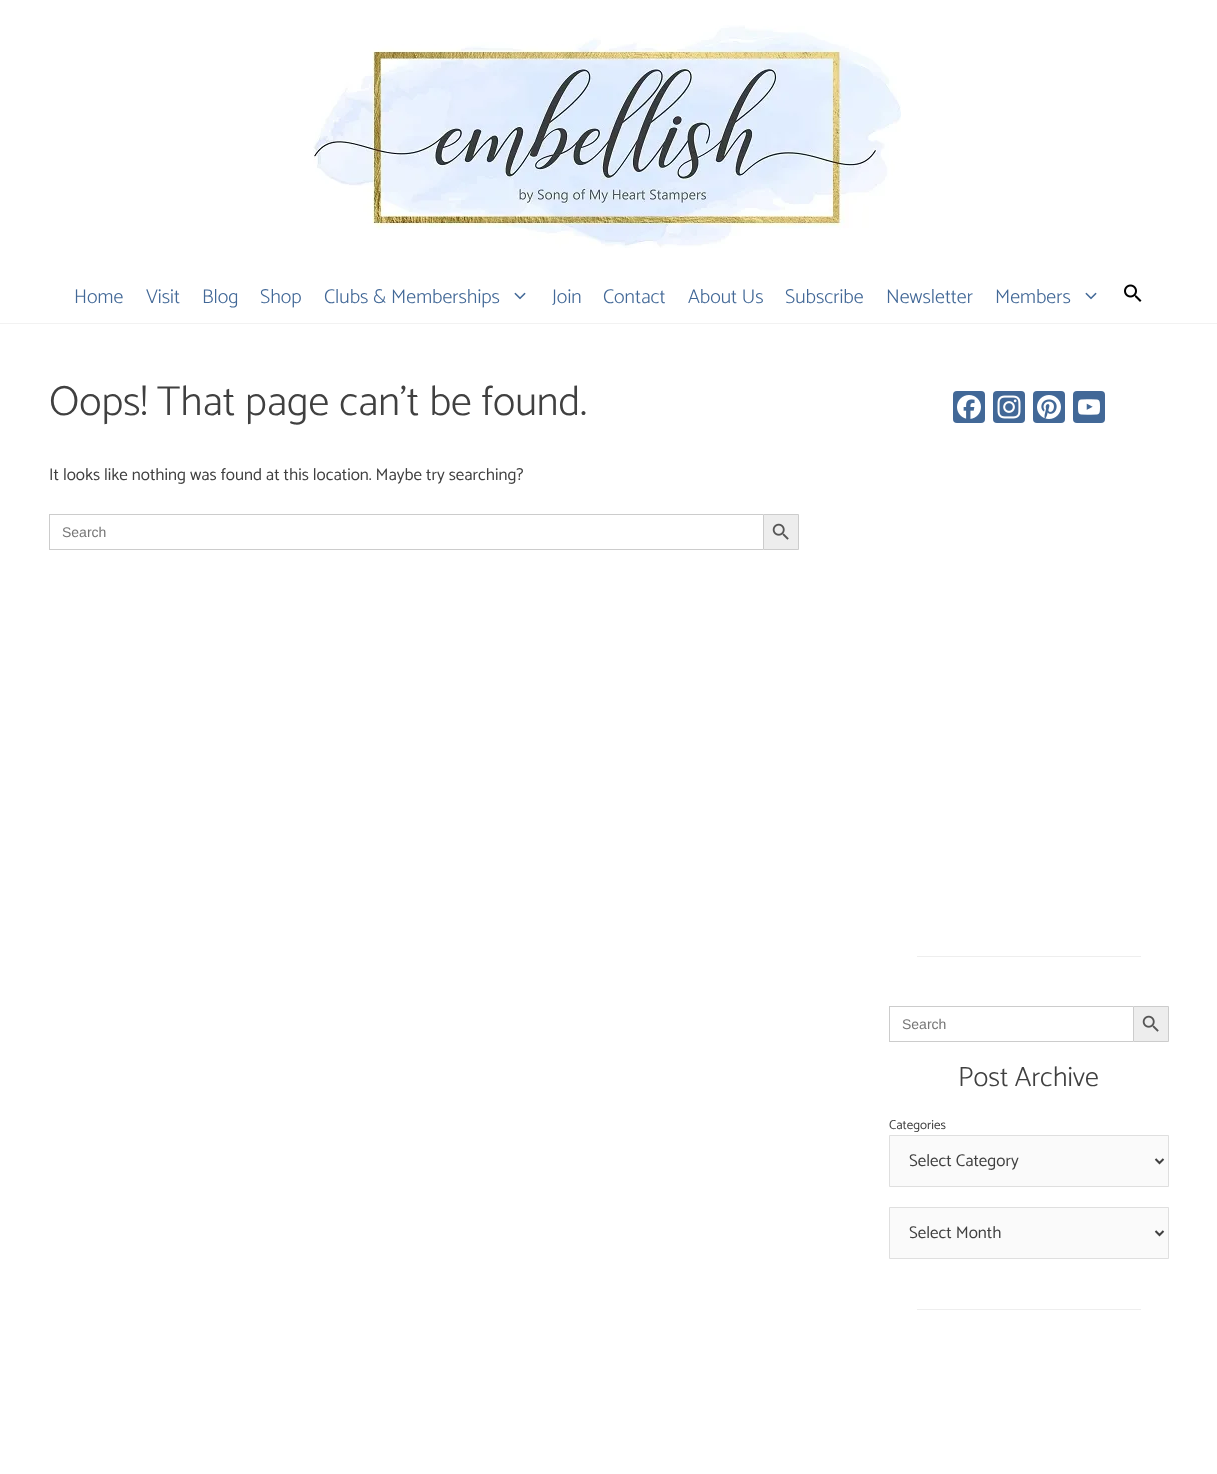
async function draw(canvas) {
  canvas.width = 1217;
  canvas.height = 1474;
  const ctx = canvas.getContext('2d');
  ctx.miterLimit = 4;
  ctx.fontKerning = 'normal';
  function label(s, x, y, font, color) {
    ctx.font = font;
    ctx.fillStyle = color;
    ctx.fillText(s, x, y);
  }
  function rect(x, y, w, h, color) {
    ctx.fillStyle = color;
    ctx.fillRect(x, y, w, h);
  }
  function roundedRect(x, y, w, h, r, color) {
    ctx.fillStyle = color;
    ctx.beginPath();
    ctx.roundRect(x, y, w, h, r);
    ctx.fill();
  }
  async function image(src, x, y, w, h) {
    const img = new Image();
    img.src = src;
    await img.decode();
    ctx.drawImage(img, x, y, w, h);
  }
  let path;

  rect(0, 0, 1217, 1474, '#fff');
  await image('assets/img1.png', 313, 25, 588, 223);
  rect(0, 323, 1217, 1, '#f2f2f2');
  label('Home', 74, 303, '300 20px Catamaran', '#426897');
  label('Visit', 146, 303, '300 20px Catamaran', '#426897');
  label('Blog', 202, 303, '300 20px Catamaran', '#426897');
  label('Shop', 260, 303, '300 20px Catamaran', '#426897');
  label('Clubs & Memberships', 324, 303, '300 20px Catamaran', '#426897');
  await image('assets/img2.png', 514, 292, 12, 8);
  label('Join', 552, 303, '300 20px Catamaran', '#426897');
  label('Contact', 603, 303, '300 20px Catamaran', '#426897');
  label('About Us', 688, 303, '300 20px Catamaran', '#426897');
  label('Subscribe', 785, 303, '300 20px Catamaran', '#426897');
  label('Newsletter', 886, 303, '300 20px Catamaran', '#426897');
  label('Members', 995, 303, '300 20px Catamaran', '#426897');
  await image('assets/img2.png', 1085, 292, 12, 8);
  await image('assets/img3.png', 1124, 284, 18, 18);
  label('Oops! That page can’t be found.', 49, 415, '300 42px Catamaran', '#404040');
  label('It looks like nothing was found at this location. Maybe try searching?', 49, 480, '17px Catamaran', '#404040');
  rect(49, 514, 714, 1, '#ccc');
  rect(49, 549, 714, 1, '#ccc');
  rect(49, 514, 1, 36, '#ccc');
  label('Search', 62, 537, '14px Liberation Sans', '#757575');
  ctx.fillStyle = '#ededed';
  ctx.beginPath();
  ctx.rect(763.5, 514.5, 35, 35);
  ctx.fill();
  ctx.strokeStyle = '#ccc';
  ctx.stroke();
  await image('assets/img4.png', 772, 523, 17, 17);
  roundedRect(953, 391, 32, 32, 4, '#426897');
  await image('assets/img5.png', 957, 395, 24, 24);
  roundedRect(993, 391, 32, 32, 4, '#426897');
  await image('assets/img6.png', 997, 395, 24, 24);
  roundedRect(1033, 391, 32, 32, 4, '#426897');
  await image('assets/img7.png', 1037, 395, 24, 24);
  roundedRect(1073, 391, 32, 32, 4, '#426897');
  await image('assets/img8.png', 1078, 399, 22, 16);
  rect(917, 956, 224, 1, '#eee');
  rect(889, 1006, 244, 1, '#ccc');
  rect(889, 1041, 244, 1, '#ccc');
  rect(889, 1006, 1, 36, '#ccc');
  label('Search', 902, 1029, '14px Liberation Sans', '#757575');
  ctx.fillStyle = '#ededed';
  ctx.beginPath();
  ctx.rect(1133.5, 1006.5, 35, 35);
  ctx.fill();
  ctx.stroke();
  await image('assets/img4.png', 1142, 1015, 17, 17);
  label('Post Archive', 958, 1086, '300 28px Catamaran', '#404040');
  label('Categories', 889, 1129, '13px Catamaran', '#404040');
  ctx.fillStyle = '#fafafa';
  ctx.beginPath();
  ctx.rect(889.5, 1135.5, 279, 51);
  ctx.fill();
  ctx.strokeStyle = '#dfdfdf';
  ctx.stroke();
  path = new Path2D('M1155.5 1159L1159.5 1163L1163.5 1159');
  ctx.strokeStyle = '#404040';
  ctx.lineWidth = 2;
  ctx.stroke(path);
  label('Select Category', 909, 1166, '17px Catamaran', '#404040');
  ctx.fillStyle = '#fafafa';
  ctx.beginPath();
  ctx.rect(889.5, 1207.5, 279, 51);
  ctx.fill();
  ctx.strokeStyle = '#dfdfdf';
  ctx.lineWidth = 1;
  ctx.stroke();
  path = new Path2D('M1155.5 1231L1159.5 1235L1163.5 1231');
  ctx.strokeStyle = '#404040';
  ctx.lineWidth = 2;
  ctx.stroke(path);
  label('Select Month', 909, 1238, '17px Catamaran', '#404040');
  rect(917, 1309, 224, 1, '#eee');
}

draw(document.querySelector('canvas'));
